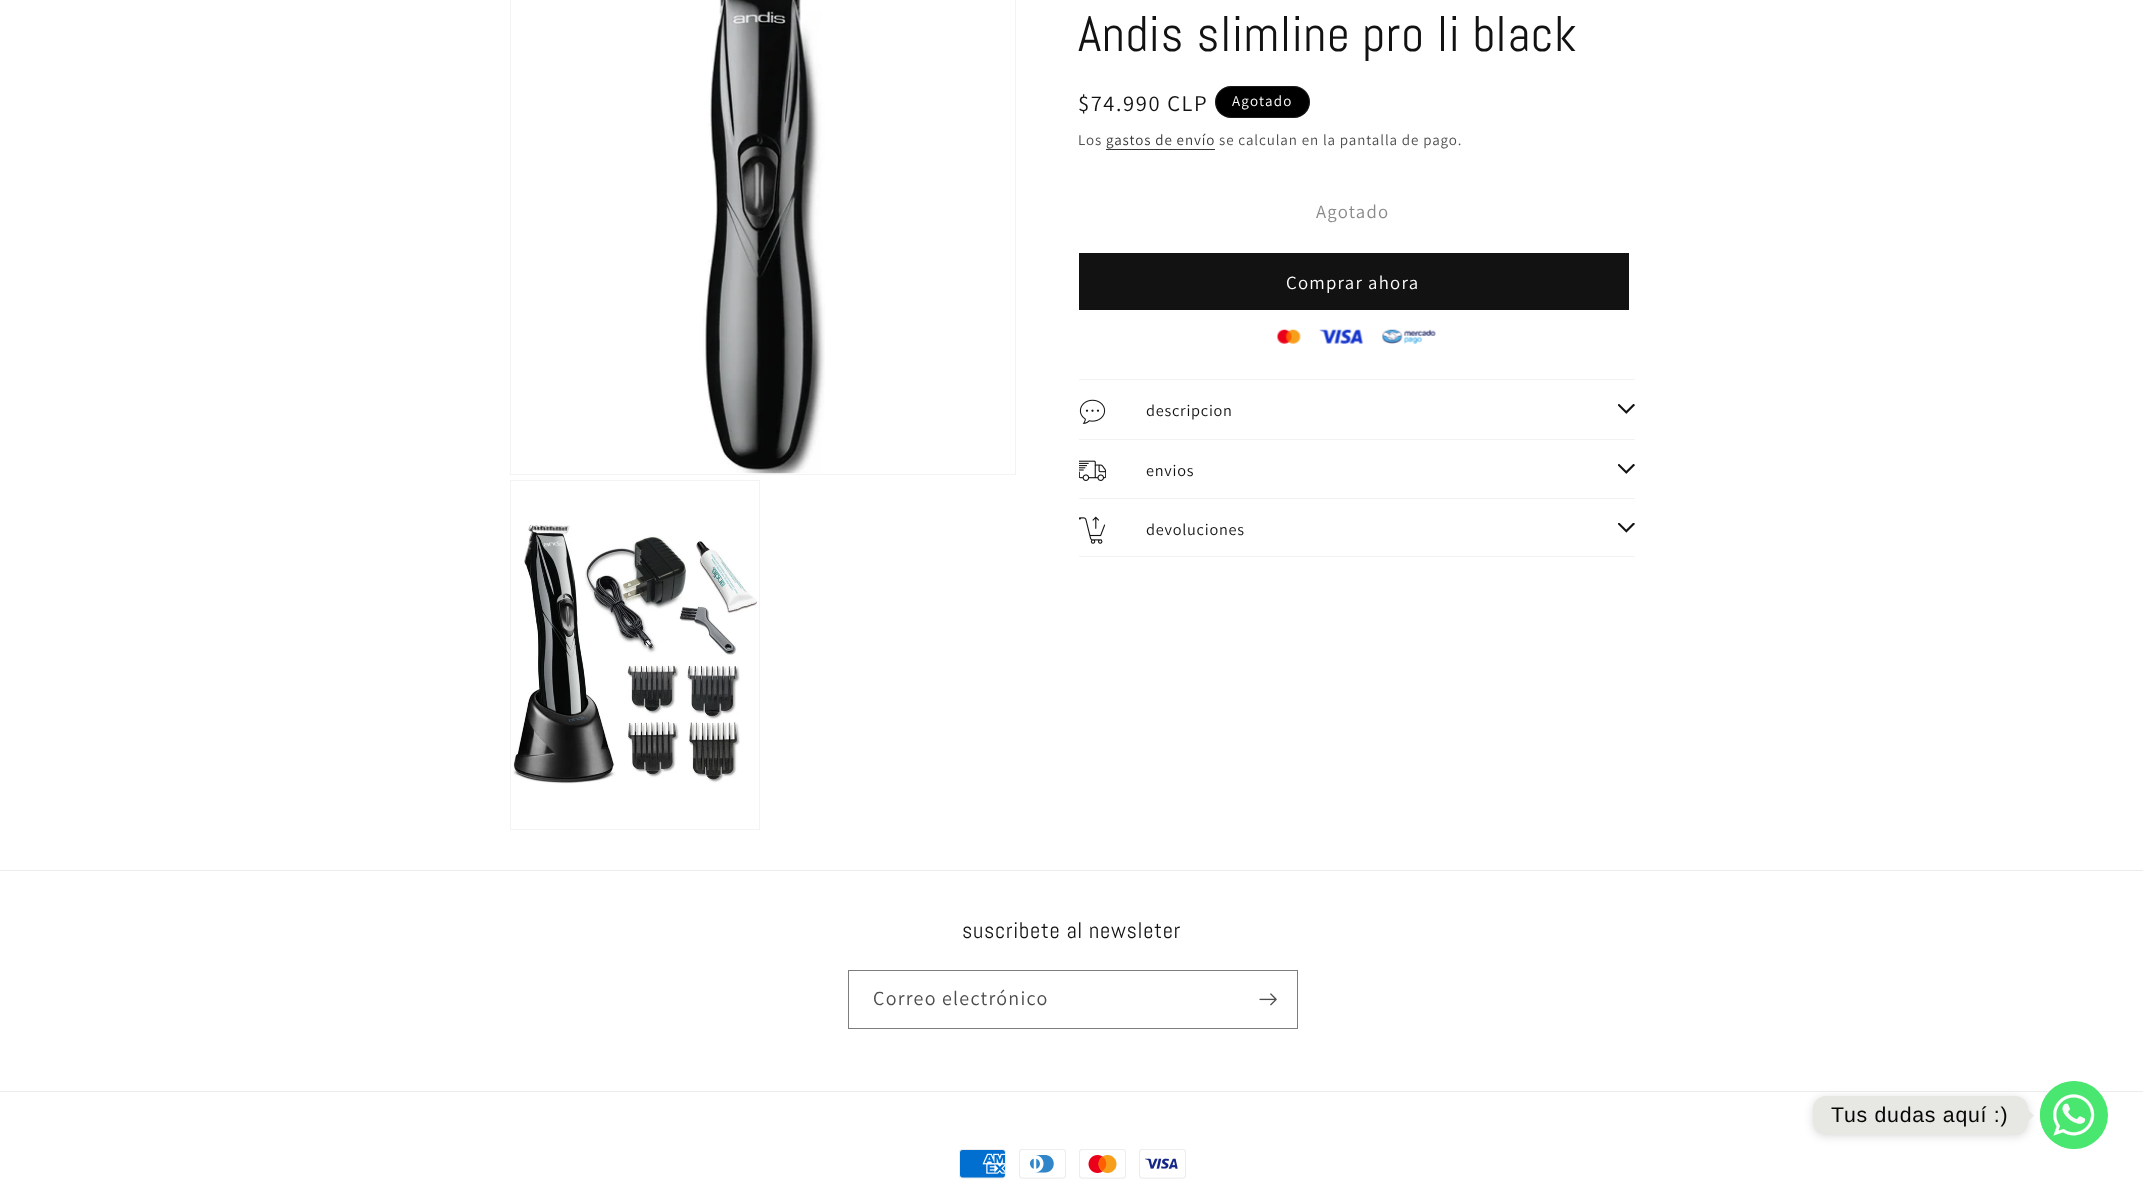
async function draw(canvas) {
  canvas.width = 2143;
  canvas.height = 1180;
  const ctx = canvas.getContext('2d');
  ctx.miterLimit = 4;
  ctx.fontKerning = 'normal';
  function label(s, x, y, font, color) {
    ctx.font = font;
    ctx.fillStyle = color;
    ctx.fillText(s, x, y);
  }
  function rect(x, y, w, h, color) {
    ctx.fillStyle = color;
    ctx.fillRect(x, y, w, h);
  }
  function roundedRect(x, y, w, h, r, color) {
    ctx.fillStyle = color;
    ctx.beginPath();
    ctx.roundRect(x, y, w, h, r);
    ctx.fill();
  }
  async function image(src, x, y, w, h) {
    const img = new Image();
    img.src = src;
    await img.decode();
    ctx.drawImage(img, x, y, w, h);
  }
  let path;

  rect(0, 0, 2143, 1180, '#fff');
  ctx.strokeStyle = '#f3f3f3';
  ctx.strokeRect(510.5, -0.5, 505, 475);
  await image('assets/img1.png', 703, 0, 122, 474);
  ctx.strokeRect(510.5, 480.5, 249, 349);
  await image('assets/img2.png', 513, 525, 245, 259);
  ctx.letterSpacing = '0.75px';
  label('Andis slimline pro li black', 1078, 51, '50px Abel', '#121212');
  ctx.letterSpacing = '1.6px';
  label('$74.990 CLP', 1078, 111, '22.5px Assistant', '#121212');
  roundedRect(1215, 86, 95, 32, 16, '#000');
  ctx.beginPath();
  ctx.roundRect(1215.5, 86.5, 94, 31, 15.5);
  ctx.strokeStyle = '#ffffff1a';
  ctx.stroke();
  ctx.letterSpacing = '1.25px';
  label('Agotado', 1232, 106, '15px Assistant', '#fff');
  ctx.letterSpacing = '0.9px';
  label('Los', 1078, 145, '15px Assistant', '#4d4d4d');
  label('gastos de envío', 1106, 145, '15px Assistant', '#363636');
  rect(1106, 149, 109, 1, '#363636');
  label('se calculan en la pantalla de pago.', 1219, 145, '15px Assistant', '#4d4d4d');
  ctx.letterSpacing = '1.25px';
  label('Agotado', 1316, 218, '18.75px Assistant', '#898989');
  rect(1079, 253, 550, 57, '#121212');
  label('Comprar ahora', 1286, 289, '18.75px Assistant', '#fff');
  await image('assets/img3.png', 1277, 329, 24, 15);
  await image('assets/img4.png', 1319, 329, 44, 15);
  await image('assets/img5.png', 1382, 329, 54, 15);
  rect(1079, 379, 556, 1, '#f2f2f2');
  await image('assets/img6.png', 1079, 399, 27, 25);
  ctx.letterSpacing = '0.75px';
  label('descripcion', 1146, 416, '16.25px Assistant', '#121212');
  await image('assets/img7.png', 1618, 404, 17, 10);
  rect(1079, 439, 556, 1, '#f2f2f2');
  await image('assets/img8.png', 1079, 460, 27, 21);
  label('envios', 1146, 476, '16.25px Assistant', '#121212');
  await image('assets/img7.png', 1618, 464, 17, 10);
  rect(1079, 498, 556, 1, '#f2f2f2');
  rect(1079, 556, 556, 1, '#f2f2f2');
  await image('assets/img9.png', 1079, 516, 27, 28);
  label('devoluciones', 1146, 535, '16.25px Assistant', '#121212');
  await image('assets/img10.png', 1618, 523, 17, 10);
  rect(0, 870, 2143, 1, '#ececec');
  label('suscribete al newsleter', 962, 938, '22.5px Abel', '#121212');
  ctx.strokeStyle = '#7d7d7d';
  ctx.strokeRect(848.5, 970.5, 449, 58);
  ctx.letterSpacing = '1.25px';
  label('Correo electrónico', 873, 1005, '20px Assistant', '#4d4d4d');
  await image('assets/img11.png', 1259, 993, 18, 13);
  rect(0, 1091, 2143, 1, '#ececec');
  await image('assets/img12.png', 959, 1149, 47, 30);
  await image('assets/img13.png', 1019, 1149, 47, 30);
  await image('assets/img14.png', 1079, 1149, 47, 30);
  await image('assets/img15.png', 1139, 1149, 47, 30);
  ctx.fillStyle = '#49e670';
  ctx.beginPath();
  ctx.arc(2074, 1115, 34, 0, 2 * Math.PI);
  ctx.fill();
  await image('assets/img16.png', 2040, 1081, 55, 68);
  ctx.fillStyle = '#00000026';
  ctx.filter = 'blur(5px)';
  ctx.beginPath();
  ctx.roundRect(1813, 1098, 215, 38, 13);
  ctx.fill();
  ctx.filter = 'none';
  roundedRect(1813, 1096, 215, 39, 13, '#e7e8e3');
  ctx.letterSpacing = '0.75px';
  label('Tus dudas aquí :)', 1831, 1122, '21.25px Liberation Sans', '#060706');
  ctx.fillStyle = '#e7e8e3';
  path = new Path2D('M2027.5 1122V1109.5L2034 1115.5Z');
  ctx.fill(path);
}

draw(document.querySelector('canvas'));
